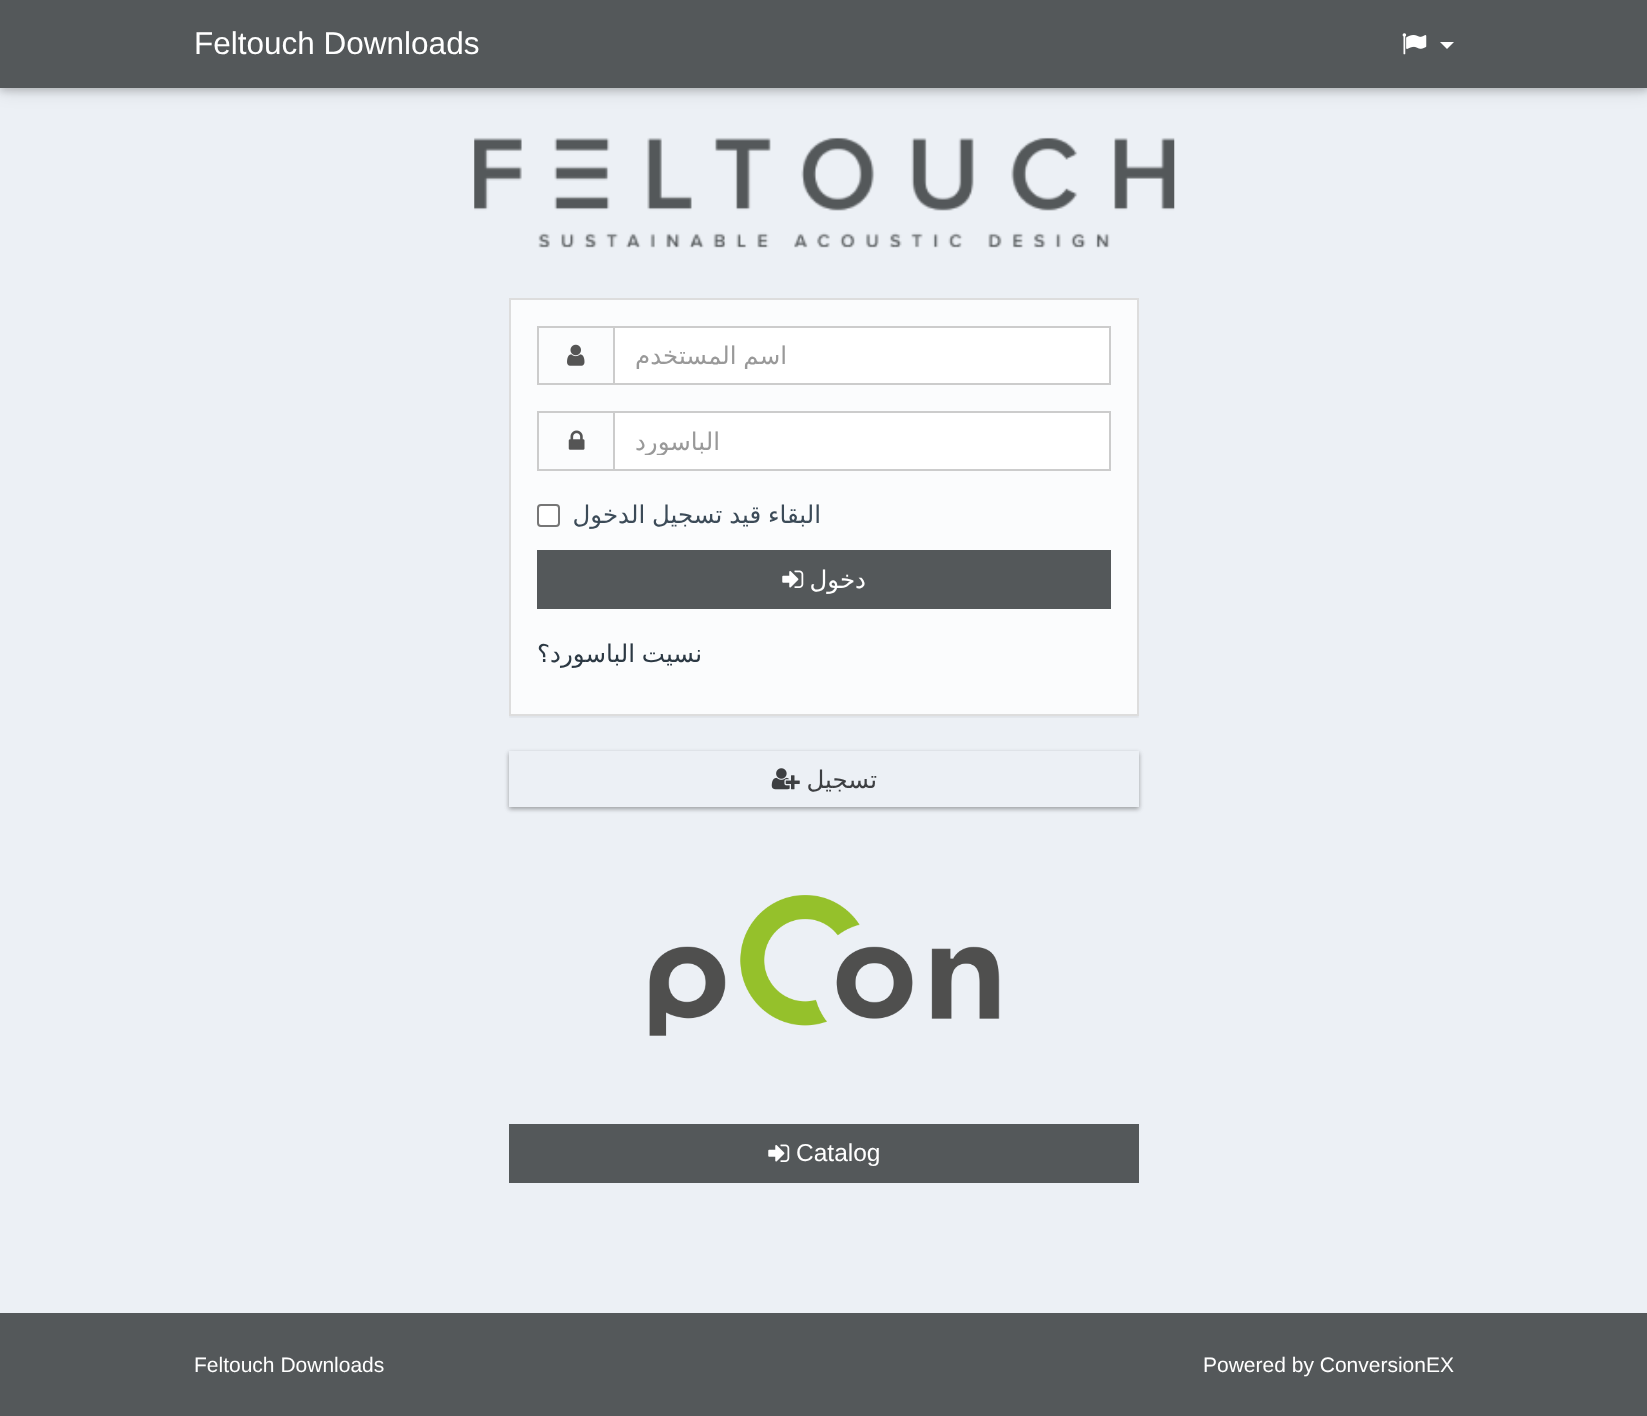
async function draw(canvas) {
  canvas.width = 1647;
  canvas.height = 1416;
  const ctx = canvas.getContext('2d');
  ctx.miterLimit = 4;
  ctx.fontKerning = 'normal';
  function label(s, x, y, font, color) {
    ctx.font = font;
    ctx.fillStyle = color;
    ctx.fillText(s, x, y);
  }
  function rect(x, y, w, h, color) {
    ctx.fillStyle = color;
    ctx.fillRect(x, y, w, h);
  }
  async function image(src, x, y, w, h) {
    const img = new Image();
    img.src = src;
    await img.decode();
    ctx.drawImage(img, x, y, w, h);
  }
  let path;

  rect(0, 0, 1647, 1416, '#ecf0f5');
  ctx.fillStyle = '#0000001f';
  ctx.filter = 'blur(9px)';
  ctx.beginPath();
  ctx.rect(0, 4, 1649, 87);
  ctx.fill();
  ctx.filter = 'none';
  ctx.fillStyle = '#00000029';
  ctx.filter = 'blur(3.5px)';
  ctx.beginPath();
  ctx.rect(0, 4, 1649, 87);
  ctx.fill();
  ctx.filter = 'none';
  rect(0, 0, 1647, 88, '#54585a');
  label('Feltouch Downloads', 194, 54, '31.5px Liberation Sans', '#fff');
  await image('assets/img1.png', 1402, 33, 25, 22);
  path = new Path2D('M1440 42H1454L1447 49Z');
  ctx.fill(path);
  await image('assets/img2.png', 474, 137, 701, 111);
  ctx.save();
  ctx.beginPath();
  ctx.rect(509, 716, 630, 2);
  ctx.clip();
  ctx.fillStyle = '#0000000d';
  ctx.filter = 'blur(1px)';
  ctx.beginPath();
  ctx.rect(509, 299, 630, 419);
  ctx.fill();
  ctx.filter = 'none';
  ctx.restore();
  ctx.fillStyle = '#ffffffcc';
  ctx.beginPath();
  ctx.rect(510, 299, 628, 416);
  ctx.fill();
  ctx.strokeStyle = '#ddd';
  ctx.lineWidth = 2;
  ctx.stroke();
  rect(537, 326, 76, 2, '#ccc');
  rect(537, 383, 76, 2, '#ccc');
  rect(537, 326, 2, 59, '#ccc');
  await image('assets/img3.png', 567, 344, 18, 22);
  ctx.fillStyle = '#fff';
  ctx.beginPath();
  ctx.rect(614, 327, 496, 57);
  ctx.fill();
  ctx.strokeStyle = '#ccc';
  ctx.stroke();
  ctx.save();
  ctx.beginPath();
  ctx.rect(635, 341, 454, 28);
  ctx.clip();
  ctx.wordSpacing = '-1px';
  ctx.direction = 'rtl';
  label('اسم المستخدم', 787, 364, '24.5px DejaVu Sans', '#999');
  ctx.restore();
  rect(537, 411, 76, 2, '#ccc');
  rect(537, 469, 76, 2, '#ccc');
  rect(537, 411, 2, 60, '#ccc');
  await image('assets/img4.png', 568, 430, 17, 20);
  ctx.fillStyle = '#fff';
  ctx.beginPath();
  ctx.rect(614, 412, 496, 58);
  ctx.fill();
  ctx.stroke();
  ctx.save();
  ctx.beginPath();
  ctx.rect(635, 427, 454, 28);
  ctx.clip();
  ctx.direction = 'rtl';
  label('الباسورد', 720, 450, '24.5px DejaVu Sans', '#999');
  ctx.restore();
  ctx.beginPath();
  ctx.roundRect(538, 505, 21, 21, 3);
  ctx.fill();
  ctx.strokeStyle = '#767676';
  ctx.stroke();
  ctx.wordSpacing = '-1px';
  ctx.direction = 'rtl';
  label('البقاء قيد تسجيل الدخول', 821, 523, '24.5px DejaVu Sans', '#3c4b58');
  rect(537, 550, 574, 59, '#54585a');
  await image('assets/img5.png', 782, 570, 22, 18);
  ctx.wordSpacing = '0px';
  label('دخول', 866, 588, '24.5px DejaVu Sans', '#fff');
  ctx.wordSpacing = '-1px';
  label('نسيت الباسورد؟', 702, 662, '24.5px DejaVu Sans', '#2c3944');
  ctx.save();
  path = new Path2D('M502 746H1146V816H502ZM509 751H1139V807H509Z');
  ctx.clip(path, 'evenodd');
  ctx.fillStyle = '#0000003d';
  ctx.filter = 'blur(2px)';
  ctx.beginPath();
  ctx.rect(509, 753, 630, 56);
  ctx.fill();
  ctx.filter = 'none';
  ctx.restore();
  ctx.save();
  path = new Path2D('M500 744H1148V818H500ZM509 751H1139V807H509Z');
  ctx.clip(path, 'evenodd');
  ctx.fillStyle = '#0000001f';
  ctx.filter = 'blur(2.5px)';
  ctx.beginPath();
  ctx.rect(509, 753, 630, 56);
  ctx.fill();
  ctx.filter = 'none';
  ctx.restore();
  await image('assets/img6.png', 771, 768, 29, 22);
  ctx.wordSpacing = '0px';
  label('تسجيل', 877, 788, '24.5px DejaVu Sans', '#3d3f42');
  await image('assets/img7.png', 649, 895, 351, 141);
  rect(509, 1124, 630, 59, '#54585a');
  await image('assets/img5.png', 768, 1144, 22, 18);
  ctx.direction = 'ltr';
  label('Catalog', 796, 1161, '24.5px Liberation Sans', '#fff');
  rect(0, 1313, 1647, 103, '#54585a');
  label('Feltouch Downloads', 194, 1372, '21px Liberation Sans', '#fff');
  label('Powered by ConversionEX', 1203, 1372, '21px Liberation Sans', '#fff');
}

draw(document.querySelector('canvas'));
